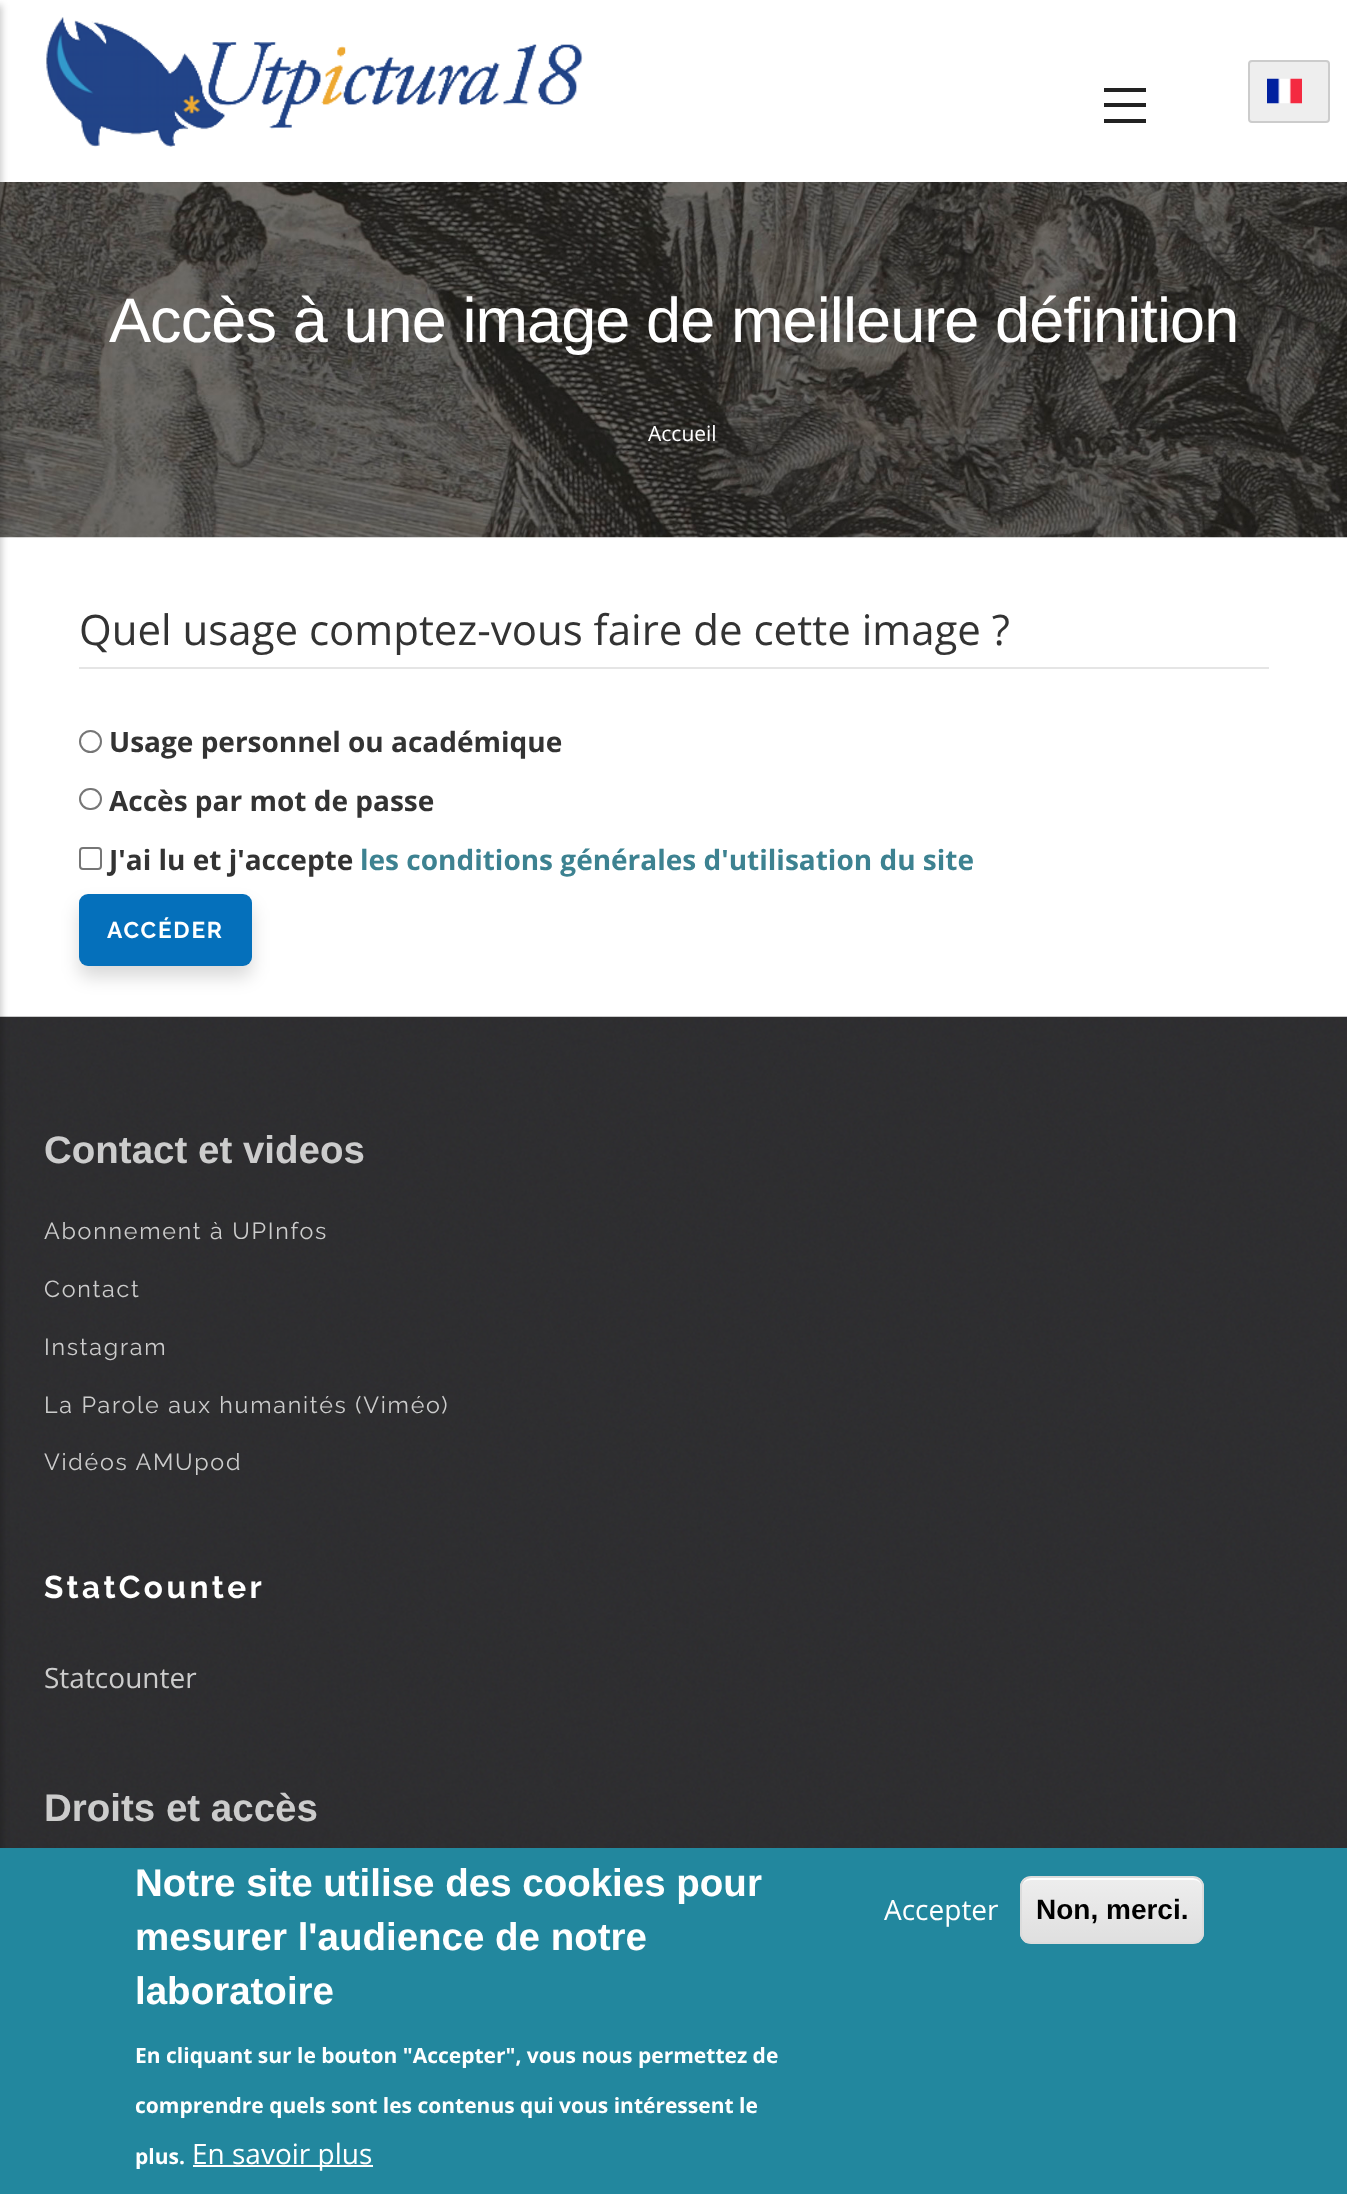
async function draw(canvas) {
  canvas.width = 1347;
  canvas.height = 2194;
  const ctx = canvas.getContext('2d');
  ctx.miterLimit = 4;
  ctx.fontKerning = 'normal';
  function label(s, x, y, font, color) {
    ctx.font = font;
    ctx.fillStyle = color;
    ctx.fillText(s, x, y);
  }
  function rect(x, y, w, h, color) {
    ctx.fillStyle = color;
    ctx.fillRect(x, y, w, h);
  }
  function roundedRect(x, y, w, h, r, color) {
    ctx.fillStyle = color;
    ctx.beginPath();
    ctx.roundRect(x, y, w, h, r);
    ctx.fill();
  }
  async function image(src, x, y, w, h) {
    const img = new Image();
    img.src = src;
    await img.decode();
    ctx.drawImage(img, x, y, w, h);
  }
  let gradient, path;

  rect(0, 0, 1347, 2194, '#fff');
  await image('assets/img3.png', 0, 182, 1347, 356);
  await image('assets/img4.png', 0, 1016, 1347, 832);
  ctx.fillStyle = '#00000033';
  ctx.filter = 'blur(3.5px)';
  ctx.beginPath();
  ctx.rect(-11, 5, 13, 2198);
  ctx.fill();
  ctx.filter = 'none';
  rect(1104, 88, 42, 4, '#222');
  rect(1104, 103, 42, 4, '#222');
  rect(1104, 119, 42, 4, '#222');
  await image('assets/img1.png', 46, 17, 537, 130);
  ctx.fillStyle = '#eee';
  ctx.beginPath();
  ctx.roundRect(1249, 61, 80, 61, 3);
  ctx.fill();
  ctx.strokeStyle = '#ccc';
  ctx.lineWidth = 2;
  ctx.stroke();
  await image('assets/img2.png', 1267, 78, 35, 26);
  ctx.letterSpacing = '-0.9px';
  label('Accès à une image de meilleure définition', 109, 342, '63px Liberation Sans', '#fff');
  ctx.letterSpacing = '0px';
  label('Accueil', 648, 441, '21px Open Sans', '#fff');
  rect(79, 667, 1190, 2, '#e5e5e5');
  label('Quel usage comptez-vous faire de cette image ?', 79, 645, '42px Open Sans', '#333');
  ctx.beginPath();
  ctx.arc(90.5, 741.5, 10.5, 0, 2 * Math.PI);
  ctx.strokeStyle = '#767676';
  ctx.stroke();
  label('Usage personnel ou académique', 109, 752, 'bold 28px Open Sans', '#333');
  ctx.beginPath();
  ctx.roundRect(80, 789, 21, 20, 10);
  ctx.stroke();
  label('Accès par mot de passe', 109, 811, 'bold 28px Open Sans', '#333');
  ctx.beginPath();
  ctx.roundRect(80, 848, 21, 21, 3);
  ctx.stroke();
  label('J\'ai lu et j\'accepte', 109, 870, 'bold 28px Open Sans', '#333');
  label('les conditions générales d\'utilisation du site', 360, 870, 'bold 28px Open Sans', '#3d8291');
  ctx.fillStyle = '#00000026';
  ctx.filter = 'blur(9px)';
  ctx.beginPath();
  ctx.roundRect(79, 905, 173, 72, 9);
  ctx.fill();
  ctx.filter = 'none';
  roundedRect(79, 894, 173, 72, 9, '#0570bb');
  ctx.letterSpacing = '1.75px';
  label('ACCÉDER', 107, 938, 'bold 22.75px Raleway', '#fff');
  ctx.letterSpacing = '0px';
  label('Contact et videos', 44, 1163, 'bold 38.5px Liberation Sans', '#ccc');
  ctx.letterSpacing = '1.75px';
  label('Abonnement à UPInfos', 44, 1239, '23.25px Raleway', '#ccc');
  label('Contact', 44, 1297, '23.25px Raleway', '#ccc');
  label('Instagram', 44, 1355, '23.25px Raleway', '#ccc');
  label('La Parole aux humanités (Viméo)', 44, 1413, '23.25px Raleway', '#ccc');
  label('Vidéos AMUpod', 44, 1470, '23.25px Raleway', '#ccc');
  ctx.letterSpacing = '3.5px';
  label('StatCounter', 44, 1598, 'bold 31.5px Raleway', '#fff');
  ctx.letterSpacing = '0px';
  label('Statcounter', 44, 1688, '28px Open Sans', '#ccc');
  label('Droits et accès', 44, 1821, 'bold 38.5px Liberation Sans', '#ccc');
  rect(0, 1848, 1347, 346, '#22879e');
  label('Notre site utilise des cookies pour', 135, 1896, 'bold 38.5px Liberation Sans', '#fff');
  label('mesurer l\'audience de notre', 135, 1950, 'bold 38.5px Liberation Sans', '#fff');
  label('laboratoire', 135, 2004, 'bold 38.5px Liberation Sans', '#fff');
  label('En cliquant sur le bouton "Accepter", vous nous permettez de', 135, 2063, 'bold 21px Open Sans', '#fff');
  label('comprendre quels sont les contenus qui vous intéressent le', 135, 2113, 'bold 21px Open Sans', '#fff');
  label('plus.', 135, 2164, 'bold 21px Open Sans', '#fff');
  rect(193, 2165, 180, 2, '#fff');
  label('En savoir plus', 192, 2164, '28px Open Sans', '#fff');
  label('Accepter', 884, 1920, '28px Open Sans', '#fff');
  ctx.save();
  ctx.beginPath();
  ctx.roundRect(1020, 1876, 184, 68, 11);
  ctx.clip();
  gradient = ctx.createLinearGradient(1112, 1878, 1112, 1943);
  gradient.addColorStop(0.05, '#ededed');
  gradient.addColorStop(1, '#dfdfdf');
  ctx.fillStyle = gradient;
  ctx.fillRect(1020, 1878, 184, 65);
  ctx.restore();
  path = new Path2D('M1031 1880H1194C1198 1880 1202 1883 1202 1888V1887C1202 1882 1198 1878 1193 1878H1031C1026 1878 1022 1882 1022 1887V1888C1022 1883 1026 1880 1031 1880Z');
  ctx.fill(path);
  ctx.beginPath();
  ctx.roundRect(1021, 1877, 182, 66, 10);
  ctx.strokeStyle = '#dcdcdc';
  ctx.stroke();
  label('Non, merci.', 1036, 1919, 'bold 28px Liberation Sans', '#000');
}

draw(document.querySelector('canvas'));
